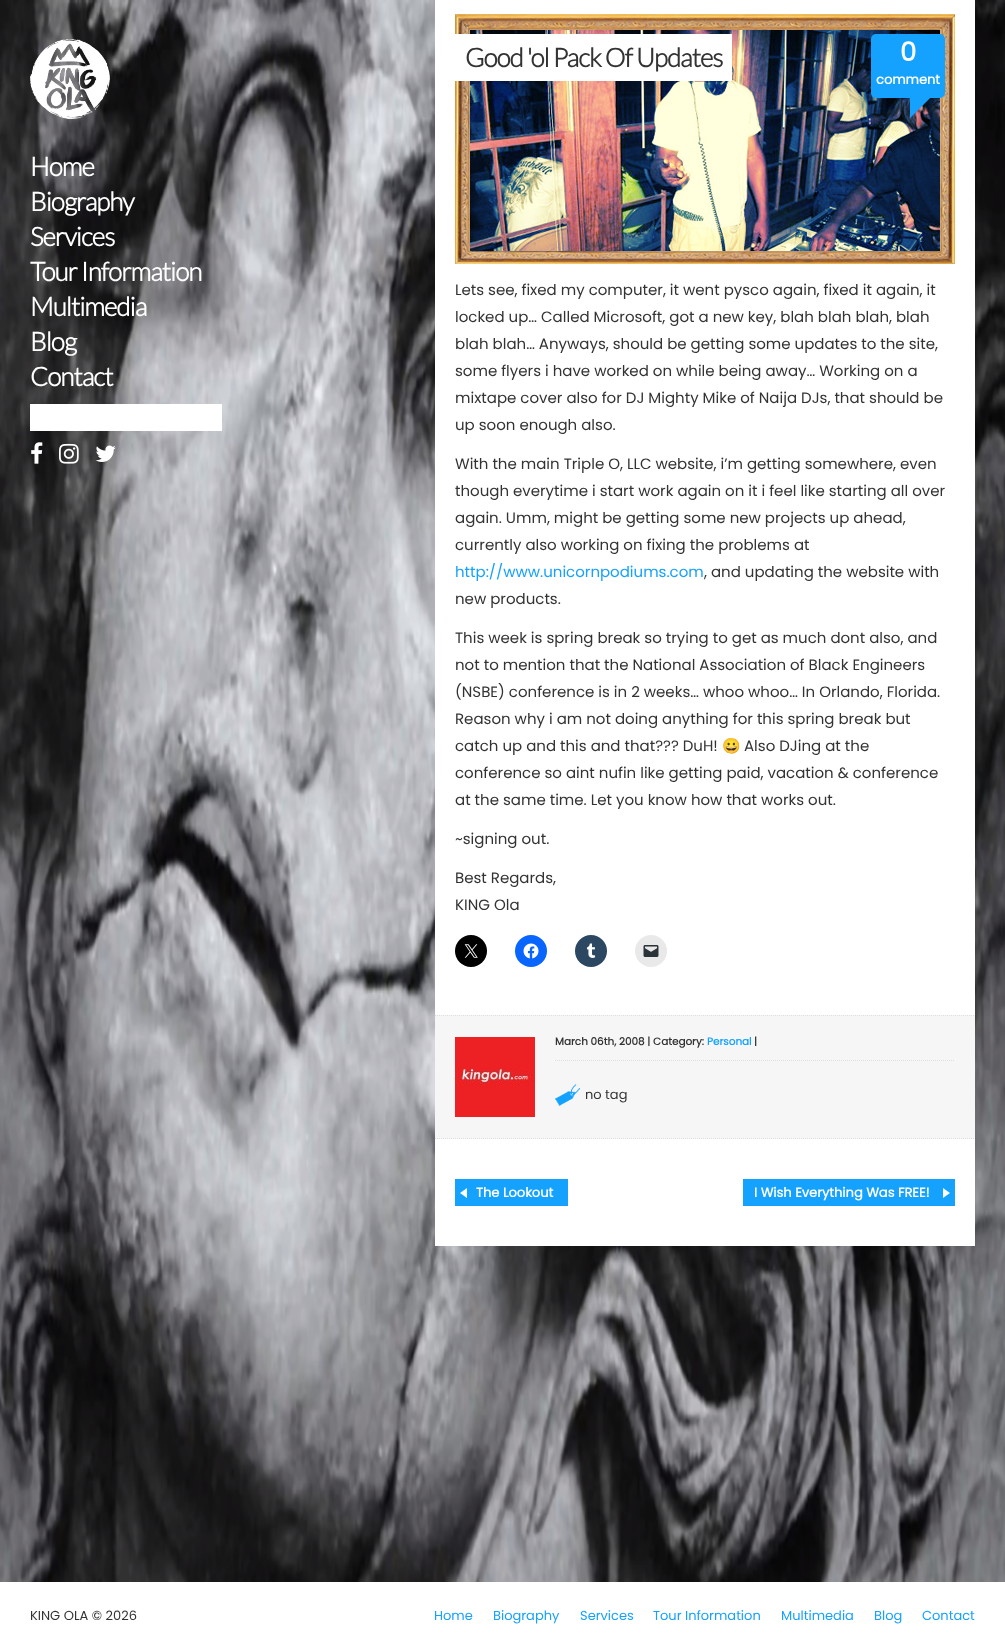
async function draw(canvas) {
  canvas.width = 1005;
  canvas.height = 1640;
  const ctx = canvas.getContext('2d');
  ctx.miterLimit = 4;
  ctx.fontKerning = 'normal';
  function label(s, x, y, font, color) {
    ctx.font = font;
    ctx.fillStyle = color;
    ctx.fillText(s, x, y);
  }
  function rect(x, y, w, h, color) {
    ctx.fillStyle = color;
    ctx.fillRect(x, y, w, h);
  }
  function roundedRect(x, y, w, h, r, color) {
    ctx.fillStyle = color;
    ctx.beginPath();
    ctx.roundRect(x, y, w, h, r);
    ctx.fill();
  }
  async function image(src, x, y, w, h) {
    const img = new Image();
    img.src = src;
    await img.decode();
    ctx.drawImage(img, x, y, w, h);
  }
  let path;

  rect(0, 0, 1005, 1640, '#fff');
  await image('assets/img1.png', 0, 0, 1005, 1582);
  await image('assets/img2.png', 30, 39, 80, 80);
  rect(435, 0, 540, 1246, '#fff');
  await image('assets/img3.png', 455, 14, 500, 250);
  rect(455, 34, 277, 47, '#fff');
  ctx.letterSpacing = '-1px';
  label('Good \'ol Pack Of Updates', 465, 67, 'bold 26px Lato', '#333');
  await image('assets/img4.png', 910, 98, 20, 20);
  roundedRect(871, 34, 74, 64, 5, '#15a2ff');
  label('0', 900, 61, 'bold 26px Poppins', '#fff');
  ctx.letterSpacing = '0px';
  label('comment', 876, 84, 'bold 13px Poppins', '#fff');
  label('Lets see, fixed my computer, it went pysco again, fixed it again, it', 455, 295, '15px Poppins', '#333');
  label('locked up… Called Microsoft, got a new key, blah blah blah, blah', 455, 322, '15px Poppins', '#333');
  label('blah blah… Anyways, should be getting some updates to the site,', 455, 349, '15px Poppins', '#333');
  label('some flyers i have worked on while being away… Working on a', 455, 376, '15px Poppins', '#333');
  label('mixtape cover also for DJ Mighty Mike of Naija DJs, that should be', 455, 403, '15px Poppins', '#333');
  label('up soon enough also.', 455, 430, '15px Poppins', '#333');
  label('With the main Triple O, LLC website, i’m getting somewhere, even', 455, 469, '15px Poppins', '#333');
  label('though everytime i start work again on it i feel like starting all over', 455, 496, '15px Poppins', '#333');
  label('again. Umm, might be getting some new projects up ahead,', 455, 523, '15px Poppins', '#333');
  label('currently also working on fixing the problems at', 455, 550, '15px Poppins', '#333');
  label('http://www.unicornpodiums.com', 455, 577, '15px Poppins', '#15a2ff');
  label(', and updating the website with', 704, 577, '15px Poppins', '#333');
  label('new products.', 455, 604, '15px Poppins', '#333');
  label('This week is spring break so trying to get as much dont also, and', 455, 643, '15px Poppins', '#333');
  label('not to mention that the National Association of Black Engineers', 455, 670, '15px Poppins', '#333');
  label('(NSBE) conference is in 2 weeks… whoo whoo… In Orlando, Florida.', 455, 697, '15px Poppins', '#333');
  label('Reason why i am not doing anything for this spring break but', 455, 724, '15px Poppins', '#333');
  label('catch up and this and that??? DuH!', 455, 751, '15px Poppins', '#333');
  label('😀', 722, 751, '15px Noto Color Emoji', '#333');
  label('Also DJing at the', 744, 751, '15px Poppins', '#333');
  label('conference so aint nufin like getting paid, vacation & conference', 455, 778, '15px Poppins', '#333');
  label('at the same time. Let you know how that works out.', 455, 805, '15px Poppins', '#333');
  label('~signing out.', 455, 844, '15px Poppins', '#333');
  label('Best Regards,', 455, 883, '15px Poppins', '#333');
  label('KING Ola', 455, 910, '15px Poppins', '#333');
  ctx.fillStyle = '#000';
  ctx.beginPath();
  ctx.arc(471, 951, 16, 0, 2 * Math.PI);
  ctx.fill();
  await image('assets/img5.png', 464, 944, 14, 14);
  ctx.fillStyle = '#0866ff';
  ctx.beginPath();
  ctx.arc(531, 951, 16, 0, 2 * Math.PI);
  ctx.fill();
  await image('assets/img6.png', 523, 943, 16, 16);
  ctx.fillStyle = '#2c4762';
  ctx.beginPath();
  ctx.arc(591, 951, 16, 0, 2 * Math.PI);
  ctx.fill();
  await image('assets/img7.png', 586, 943, 10, 15);
  ctx.fillStyle = '#e9e9e9';
  ctx.beginPath();
  ctx.arc(651, 951, 16, 0, 2 * Math.PI);
  ctx.fill();
  await image('assets/img8.png', 643, 945, 16, 12);
  rect(435, 1015, 540, 124, '#f6f6f6');
  path = new Path2D('M435 1015.5H975');
  ctx.strokeStyle = '#ddd';
  ctx.setLineDash([1, 1]);
  ctx.stroke(path);
  path = new Path2D('M435 1138.5H975');
  ctx.stroke(path);
  await image('assets/img9.png', 455, 1037, 80, 80);
  path = new Path2D('M555 1060.5H955');
  ctx.stroke(path);
  label('March 06th, 2008 | Category:', 555, 1045, 'bold 10.4px Poppins', '#333');
  label('Personal', 707, 1045, 'bold 10.4px Poppins', '#15a2ff');
  label('|', 754, 1045, 'bold 10.4px Poppins', '#333');
  await image('assets/img10.png', 555, 1084, 25, 22);
  label('no tag', 585, 1099, '13px Poppins', '#333');
  rect(455, 1179, 113, 27, '#15a2ff');
  await image('assets/img11.png', 460, 1188, 7, 10);
  label('The Lookout', 476, 1197, 'bold 13px Poppins', '#fff');
  rect(743, 1179, 212, 27, '#15a2ff');
  await image('assets/img12.png', 943, 1188, 7, 10);
  label('I Wish Everything Was FREE!', 754, 1197, 'bold 13px Poppins', '#fff');
  ctx.letterSpacing = '-1px';
  label('Home', 30, 176, 'bold 26px Lato', '#fff');
  label('Biography', 30, 211, 'bold 26px Lato', '#fff');
  label('Services', 30, 246, 'bold 26px Lato', '#fff');
  label('Tour Information', 30, 281, 'bold 26px Lato', '#fff');
  label('Multimedia', 30, 316, 'bold 26px Lato', '#fff');
  label('Blog', 30, 351, 'bold 26px Lato', '#fff');
  label('Contact', 30, 386, 'bold 26px Lato', '#fff');
  rect(30, 404, 192, 27, '#fff');
  await image('assets/img13.png', 31, 442, 12, 22);
  await image('assets/img14.png', 59, 443, 20, 21);
  await image('assets/img15.png', 95, 445, 21, 17);
  ctx.letterSpacing = '0px';
  label('KING OLA © 2026', 30, 1620, '13px Poppins', '#333');
  label('Home', 434, 1620, '13px Poppins', '#15a2ff');
  label('Biography', 493, 1620, '13px Poppins', '#15a2ff');
  label('Services', 580, 1620, '13px Poppins', '#15a2ff');
  label('Tour Information', 653, 1620, '13px Poppins', '#15a2ff');
  label('Multimedia', 781, 1620, '13px Poppins', '#15a2ff');
  label('Blog', 874, 1620, '13px Poppins', '#15a2ff');
  label('Contact', 922, 1620, '13px Poppins', '#15a2ff');
}

draw(document.querySelector('canvas'));
